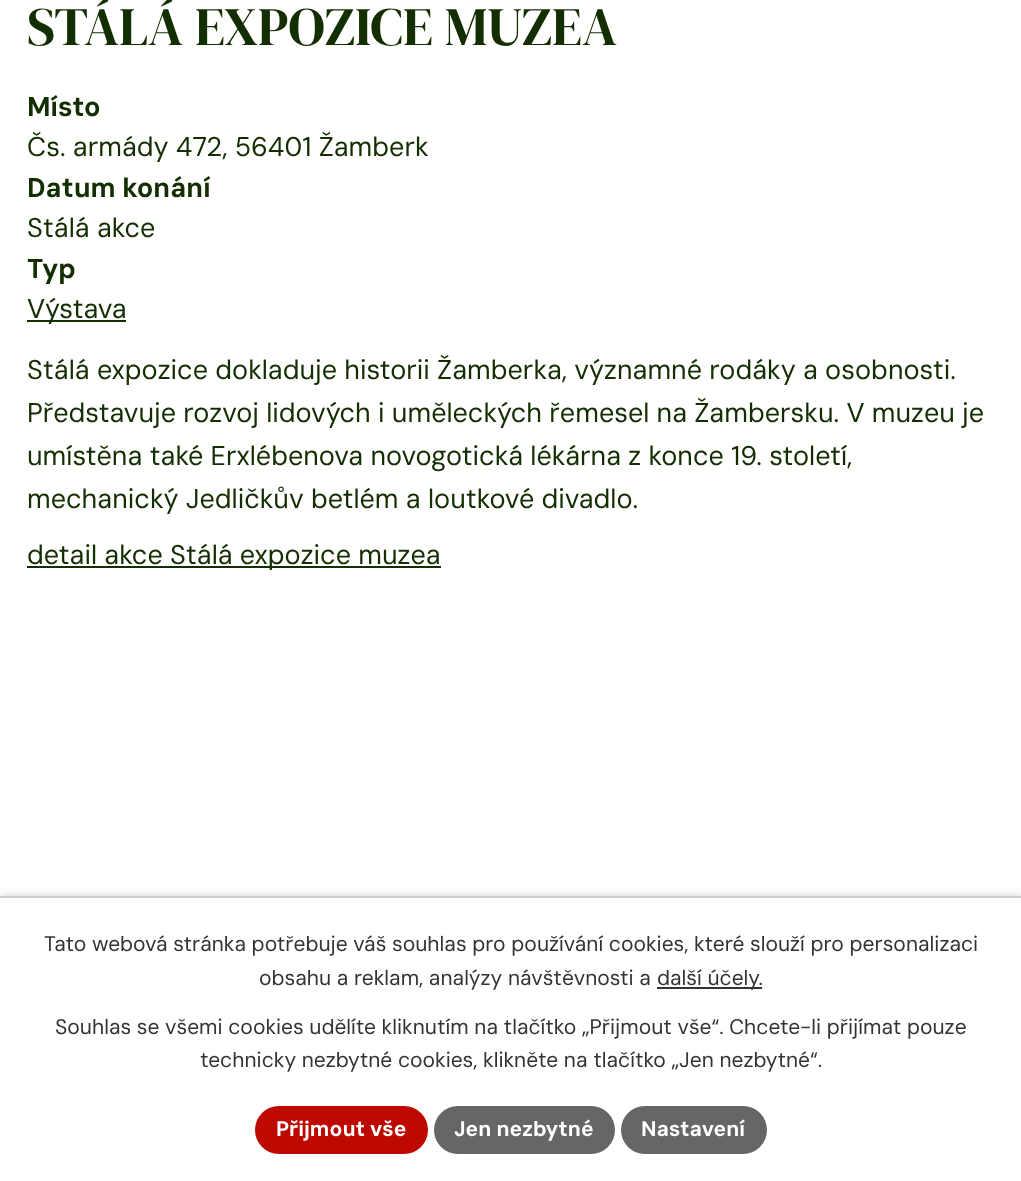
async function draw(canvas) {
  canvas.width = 1021;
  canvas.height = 1181;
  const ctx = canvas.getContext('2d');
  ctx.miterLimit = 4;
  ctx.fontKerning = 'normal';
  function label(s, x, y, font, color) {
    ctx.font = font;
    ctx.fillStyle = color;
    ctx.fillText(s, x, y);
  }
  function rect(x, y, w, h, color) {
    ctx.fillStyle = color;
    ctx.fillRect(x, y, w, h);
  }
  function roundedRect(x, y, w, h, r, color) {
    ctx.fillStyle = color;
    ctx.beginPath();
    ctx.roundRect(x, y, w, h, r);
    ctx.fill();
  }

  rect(0, 0, 1021, 1181, '#fff');
  label('STÁLÁ EXPOZICE MUZEA', 27, 45, '54px DM Serif Display', '#132e00');
  label('Místo', 27, 116, 'bold 27px DM Sans', '#132e00');
  label('Čs. armády 472, 56401 Žamberk', 27, 156, '27px DM Sans', '#132e00');
  label('Datum konání', 27, 197, 'bold 27px DM Sans', '#132e00');
  label('Stálá akce', 27, 237, '27px DM Sans', '#132e00');
  label('Typ', 27, 278, 'bold 27px DM Sans', '#132e00');
  rect(27, 320, 99, 2, '#132e00');
  label('Výstava', 27, 318, '27px DM Sans', '#132e00');
  label('Stálá expozice dokladuje historii Žamberka, významné rodáky a osobnosti.', 27, 379, '27px DM Sans', '#132e00');
  label('Představuje rozvoj lidových i uměleckých řemesel na Žambersku. V muzeu je', 27, 422, '27px DM Sans', '#132e00');
  label('umístěna také Erxlébenova novogotická lékárna z konce 19. století,', 27, 465, '27px DM Sans', '#132e00');
  label('mechanický Jedličkův betlém a loutkové divadlo.', 27, 508, '27px DM Sans', '#132e00');
  rect(27, 566, 414, 2, '#132e00');
  label('detail akce Stálá expozice muzea', 27, 564, '27px DM Sans', '#132e00');
  ctx.fillStyle = '#00000033';
  ctx.filter = 'blur(4px)';
  ctx.beginPath();
  ctx.rect(0, 896, 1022, 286);
  ctx.fill();
  ctx.filter = 'none';
  rect(0, 898, 1021, 283, '#fff');
  rect(0, 896, 1021, 2, '#ccc');
  label('Tato webová stránka potřebuje váš souhlas pro používání cookies, které slouží pro personalizaci', 44, 951, '21px DM Sans', '#333');
  label('obsahu a reklam, analýzy návštěvnosti a', 259, 985, '21px DM Sans', '#333');
  rect(657, 987, 105, 2, '#333');
  label('další účely.', 657, 985, '21px DM Sans', '#333');
  label('Souhlas se všemi cookies udělíte kliknutím na tlačítko „Přijmout vše“. Chcete-li přijímat pouze', 55, 1034, '21px DM Sans', '#333');
  label('technicky nezbytné cookies, klikněte na tlačítko „Jen nezbytné“.', 200, 1067, '21px DM Sans', '#333');
  roundedRect(255, 1106, 173, 48, 24, '#be0901');
  label('Přijmout vše', 276, 1136, 'bold 21px DM Sans', '#fff');
  roundedRect(434, 1106, 181, 48, 24, '#666');
  label('Jen nezbytné', 454, 1136, 'bold 21px DM Sans', '#fff');
  roundedRect(621, 1106, 146, 48, 24, '#666');
  label('Nastavení', 641, 1136, 'bold 21px DM Sans', '#fff');
}

draw(document.querySelector('canvas'));
